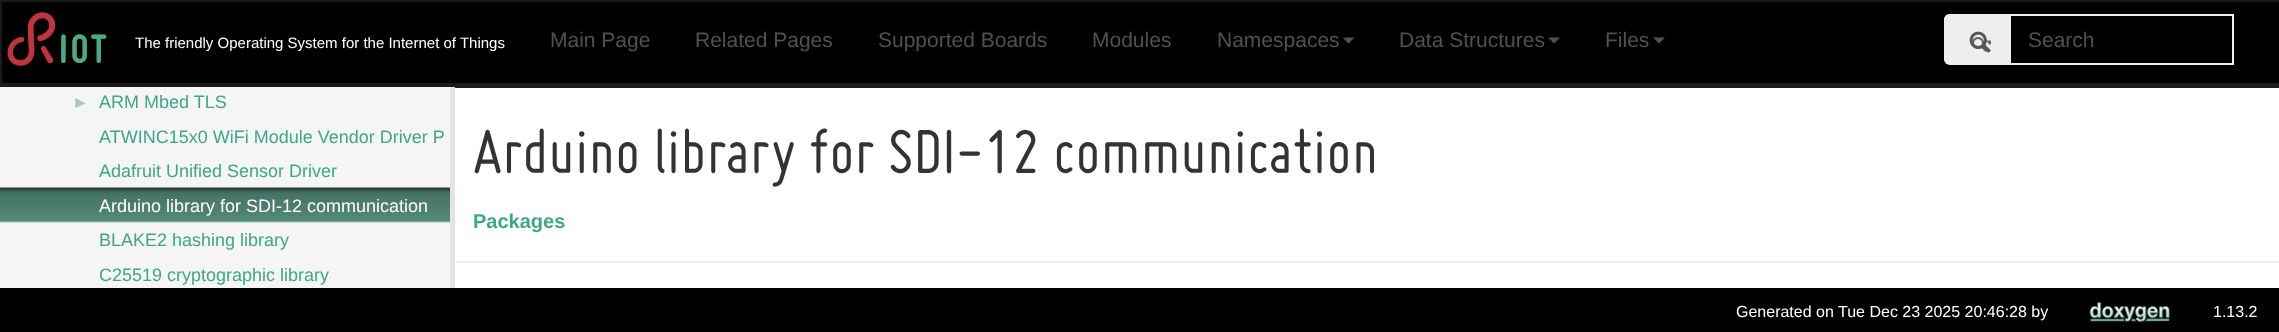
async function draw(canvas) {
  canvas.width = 2279;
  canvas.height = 332;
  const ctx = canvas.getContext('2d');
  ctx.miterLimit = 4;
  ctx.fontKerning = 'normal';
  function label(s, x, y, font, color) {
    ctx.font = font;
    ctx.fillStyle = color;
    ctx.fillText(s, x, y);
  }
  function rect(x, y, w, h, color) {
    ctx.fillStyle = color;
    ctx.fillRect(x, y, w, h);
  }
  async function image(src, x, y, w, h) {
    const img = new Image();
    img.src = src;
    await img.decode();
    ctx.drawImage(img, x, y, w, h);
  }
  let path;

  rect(0, 0, 2279, 332, '#fff');
  rect(2, 2, 2277, 81, '#000');
  rect(0, 0, 2279, 2, '#1a1a1a');
  rect(0, 83, 2279, 5, '#1a1a1a');
  rect(0, 0, 2, 87, '#1a1a1a');
  await image('assets/img1.png', 7, 12, 100, 54);
  label('The friendly Operating System for the Internet of Things', 135, 48, '15px Liberation Sans', '#fff');
  label('Main Page', 550, 47, '21px Liberation Sans', '#515151');
  label('Related Pages', 695, 47, '21px Liberation Sans', '#515151');
  label('Supported Boards', 878, 47, '21px Liberation Sans', '#515151');
  label('Modules', 1092, 47, '21px Liberation Sans', '#515151');
  label('Namespaces', 1217, 47, '21px Liberation Sans', '#515151');
  path = new Path2D('M1342.5 37.5H1354.5L1348.5 43.5Z');
  ctx.fill(path);
  label('Data Structures', 1399, 47, '21px Liberation Sans', '#515151');
  path = new Path2D('M1548 37.5H1560L1554 43.5Z');
  ctx.fill(path);
  label('Files', 1605, 47, '21px Liberation Sans', '#515151');
  path = new Path2D('M1653 37.5H1665L1659 43.5Z');
  ctx.fill(path);
  ctx.fillStyle = '#eee';
  ctx.beginPath();
  ctx.roundRect(1944, 14, 65, 51, [6, 0, 0, 6]);
  ctx.fill();
  path = new Path2D('M1950 14H2008V64H1950C1947 64 1944 62 1944 58V20C1944 16 1947 14 1950 14ZM1950 15H2008V63H1950C1948 63 1946 61 1946 58V20C1946 17 1948 15 1950 15Z');
  ctx.fill(path, 'evenodd');
  await image('assets/img3.png', 1972, 37, 19, 15);
  await image('assets/img2.png', 1969, 31, 22, 22);
  ctx.strokeStyle = '#eee';
  ctx.lineWidth = 2;
  ctx.strokeRect(2010, 15, 223, 49);
  label('Search', 2028, 47, '21px Liberation Sans', '#515151');
  rect(0, 87, 450, 201, '#f5f5f5');
  label('►', 72, 108, '17px Liberation Sans', '#a7c9bf');
  label('ARM Mbed TLS', 99, 108, '18px Liberation Sans', '#3fa687');
  label('ATWINC15x0 WiFi Module Vendor Driver P', 99, 143, '18px Liberation Sans', '#3fa687');
  label('Adafruit Unified Sensor Driver', 99, 177, '18px Liberation Sans', '#3fa687');
  await image('assets/img4.png', 0, 187, 450, 36);
  label('Arduino library for SDI-12 communication', 99, 212, '18px Liberation Sans', '#fff');
  label('BLAKE2 hashing library', 99, 246, '18px Liberation Sans', '#3fa687');
  label('C25519 cryptographic library', 99, 281, '18px Liberation Sans', '#3fa687');
  rect(450, 87, 5, 201, '#e3e3e3');
  rect(455, 261, 1824, 2, '#eee');
  label('Arduino library for SDI-12 communication', 473, 173, '67.5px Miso', '#333');
  label('Packages', 473, 228, 'bold 20px Liberation Sans', '#3fa687');
  rect(0, 288, 2279, 44, '#000');
  label('Generated on Tue Dec 23 2025 20:46:28 by', 1736, 317, '16px Liberation Sans', '#fff');
  await image('assets/img5.png', 2089, 302, 81, 21);
  label('1.13.2', 2213, 317, '16px Liberation Sans', '#fff');
}

draw(document.querySelector('canvas'));
